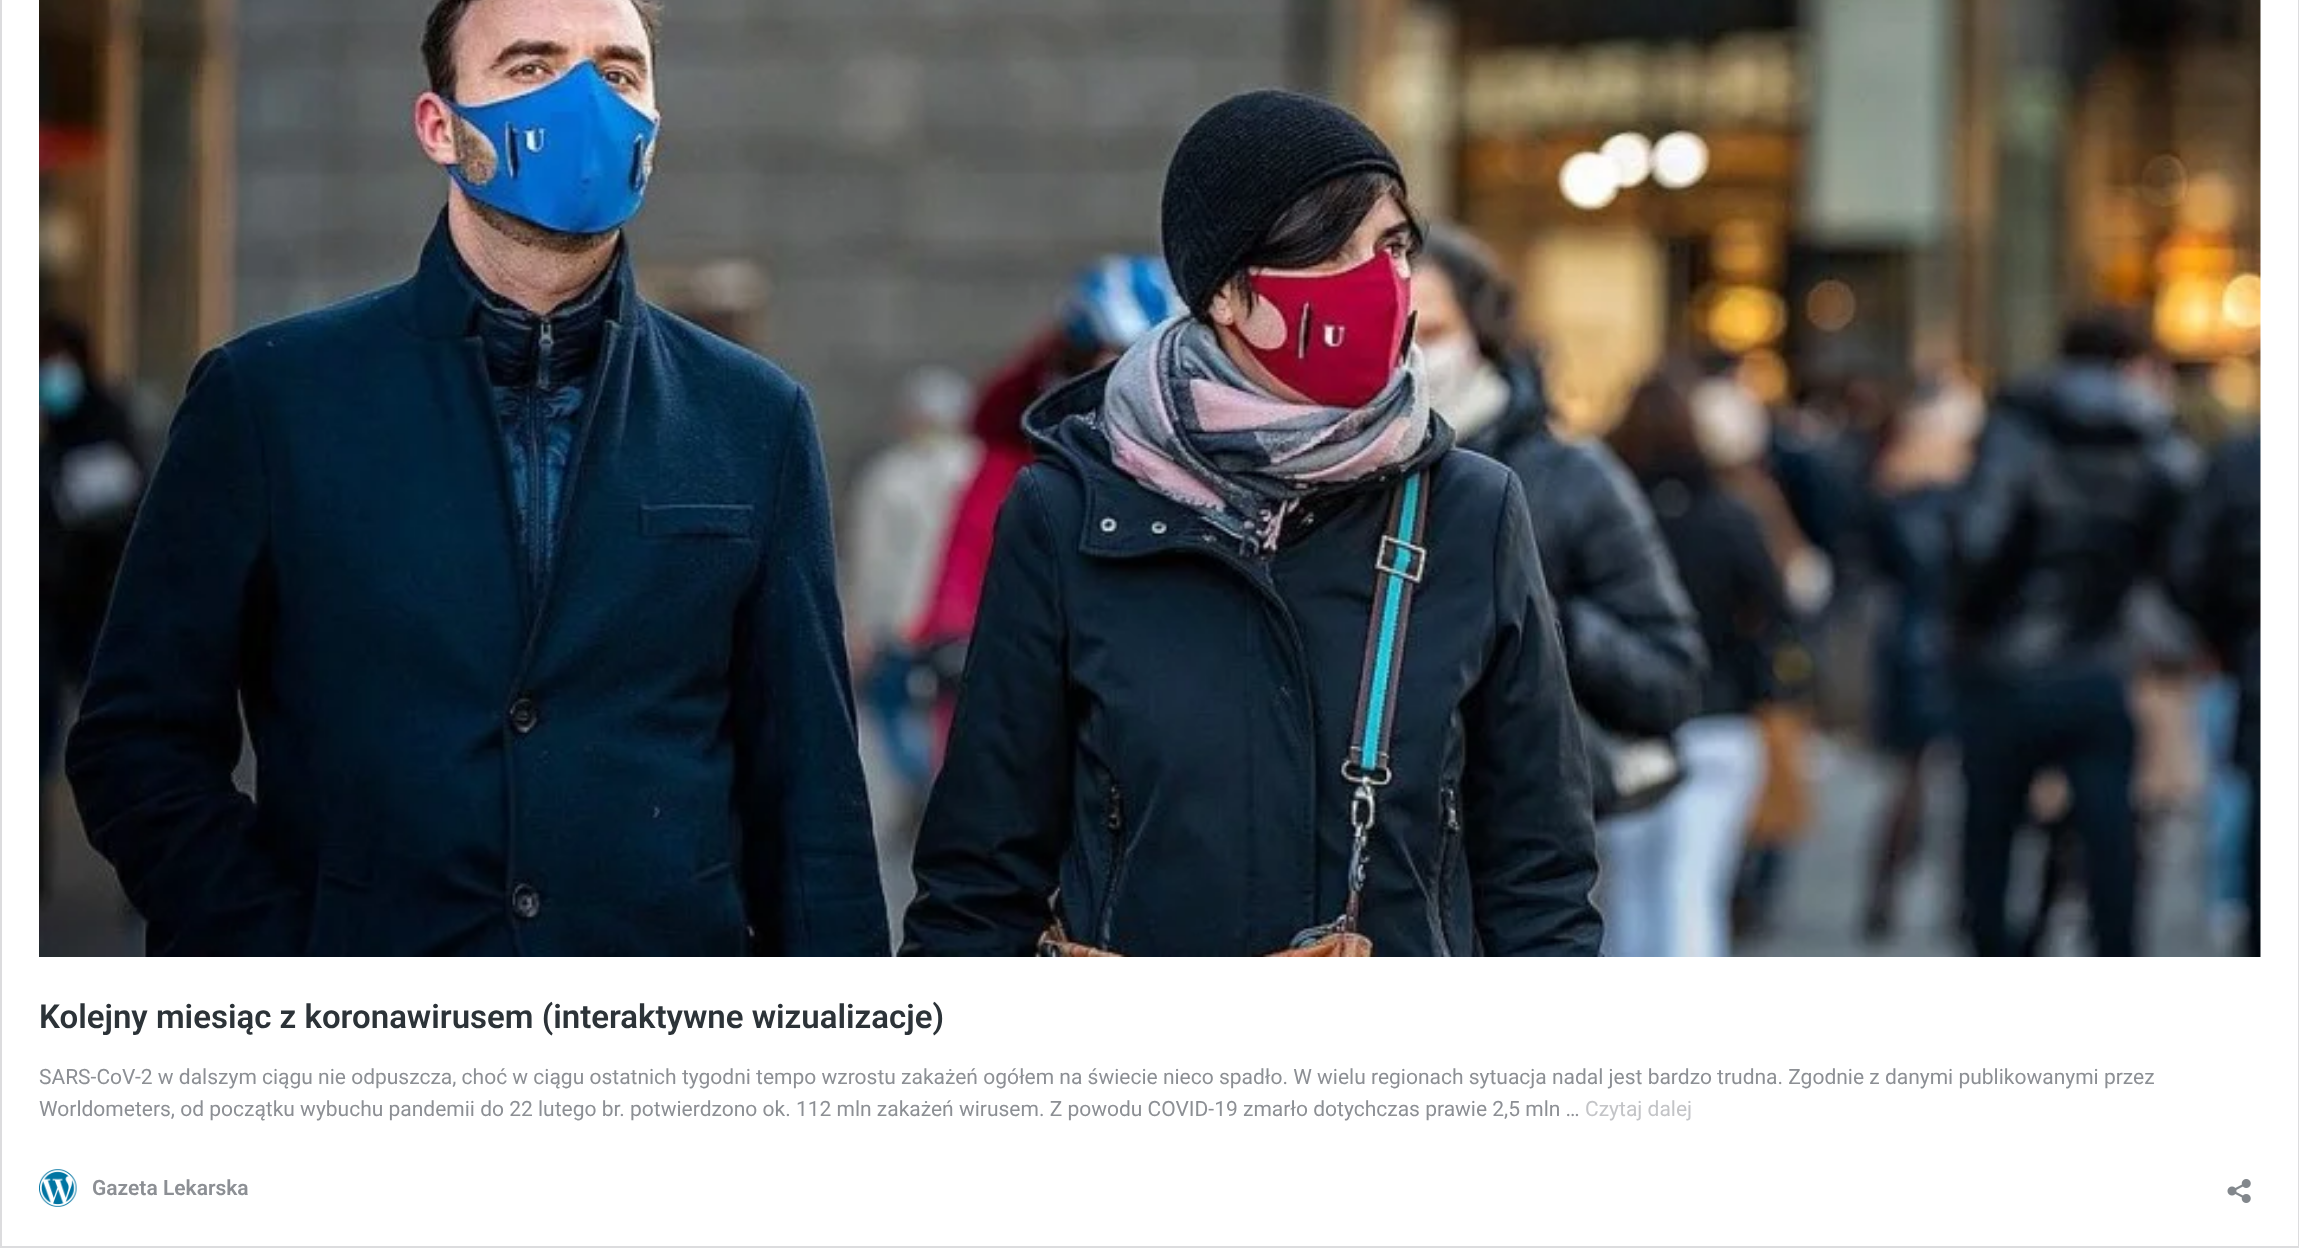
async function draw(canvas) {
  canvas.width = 2299;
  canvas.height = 1248;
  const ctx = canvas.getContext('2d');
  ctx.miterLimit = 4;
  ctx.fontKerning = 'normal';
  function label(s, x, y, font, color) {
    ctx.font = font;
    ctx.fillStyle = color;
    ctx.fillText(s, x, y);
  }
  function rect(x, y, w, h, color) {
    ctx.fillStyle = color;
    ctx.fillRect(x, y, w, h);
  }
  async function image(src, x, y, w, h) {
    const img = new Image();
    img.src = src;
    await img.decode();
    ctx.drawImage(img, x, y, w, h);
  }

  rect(0, 0, 2299, 1248, '#fff');
  ctx.strokeStyle = '#dcdcde';
  ctx.lineWidth = 2;
  ctx.strokeRect(1, -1, 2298, 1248);
  await image('assets/img1.png', 39, 0, 2222, 957);
  label('Kolejny miesiąc z koronawirusem (interaktywne wizualizacje)', 39, 1028, '600 33px Roboto', '#2c3338');
  label('SARS-CoV-2 w dalszym ciągu nie odpuszcza, choć w ciągu ostatnich tygodni tempo wzrostu zakażeń ogółem na świecie nieco spadło. W wielu regionach sytuacja nadal jest bardzo trudna. Zgodnie z danymi publikowanymi przez', 39, 1084, '21px Roboto', '#8c8f94');
  label('Worldometers, od początku wybuchu pandemii do 22 lutego br. potwierdzono ok. 112 mln zakażeń wirusem. Z powodu COVID-19 zmarło dotychczas prawie 2,5 mln …', 39, 1116, '21px Roboto', '#8c8f94');
  label('Czytaj dalej', 1585, 1116, '21px Roboto', '#c3c4c7');
  await image('assets/img2.png', 39, 1169, 38, 38);
  label('Gazeta Lekarska', 92, 1195, '600 21px Roboto', '#8c8f94');
  await image('assets/img3.png', 2227, 1179, 24, 24);
}

draw(document.querySelector('canvas'));
